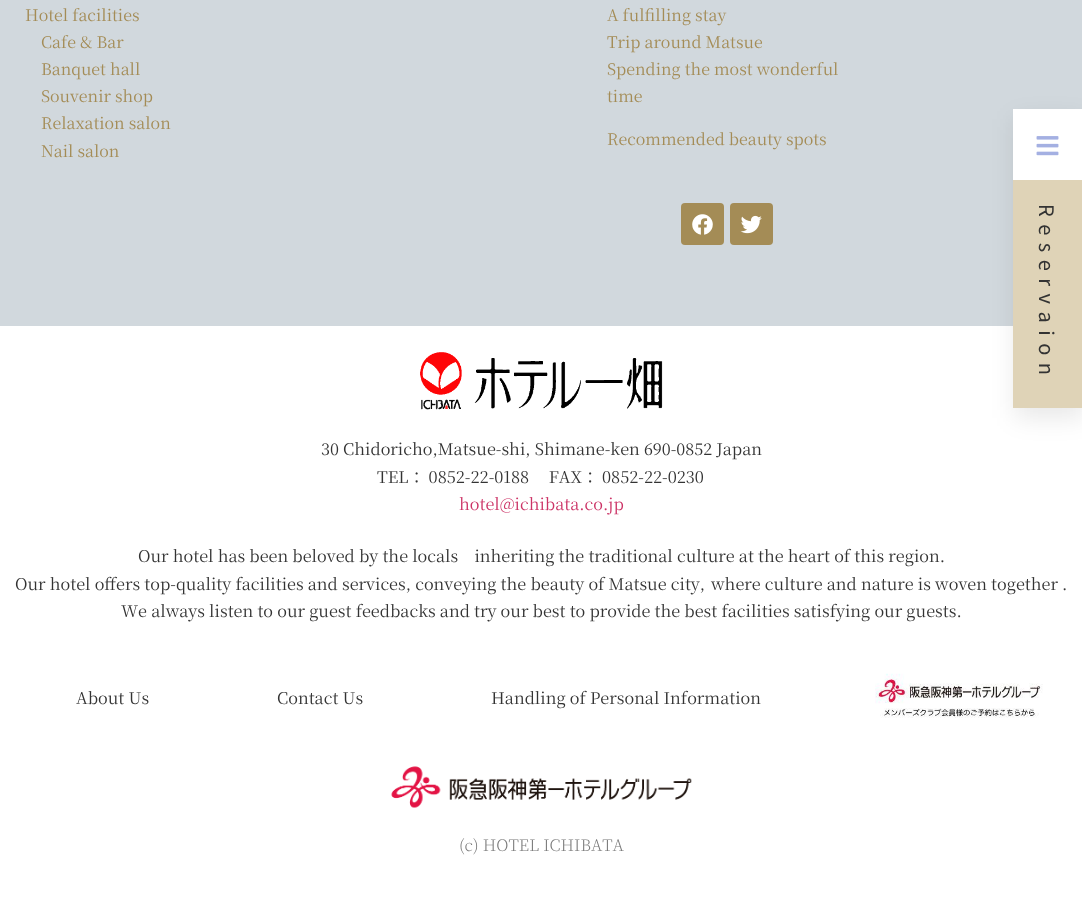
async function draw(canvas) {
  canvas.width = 1082;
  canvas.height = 911;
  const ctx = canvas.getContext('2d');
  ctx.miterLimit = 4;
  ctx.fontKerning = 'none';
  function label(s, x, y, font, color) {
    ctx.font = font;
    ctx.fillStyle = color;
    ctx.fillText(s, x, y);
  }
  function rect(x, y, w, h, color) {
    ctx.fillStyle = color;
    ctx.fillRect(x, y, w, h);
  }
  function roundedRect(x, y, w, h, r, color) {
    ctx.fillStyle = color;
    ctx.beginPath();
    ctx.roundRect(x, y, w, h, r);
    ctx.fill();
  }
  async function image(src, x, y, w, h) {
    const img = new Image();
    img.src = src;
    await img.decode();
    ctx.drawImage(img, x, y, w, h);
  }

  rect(0, 0, 1082, 911, '#fff');
  rect(0, 0, 1082, 326, '#d1d8dd');
  label('Hotel facilities', 25, 21, '16px Noto Serif JP', '#a48c56');
  label('Cafe & Bar', 41, 48, '16px Noto Serif JP', '#a48c56');
  label('Banquet hall', 41, 75, '16px Noto Serif JP', '#a48c56');
  label('Souvenir shop', 41, 102, '16px Noto Serif JP', '#a48c56');
  label('Relaxation salon', 41, 129, '16px Noto Serif JP', '#a48c56');
  label('Nail salon', 41, 157, '16px Noto Serif JP', '#a48c56');
  label('A fulfilling stay', 607, 21, '16px Noto Serif JP', '#a48c56');
  label('Trip around Matsue', 607, 48, '16px Noto Serif JP', '#a48c56');
  label('Spending the most wonderful', 607, 75, '16px Noto Serif JP', '#a48c56');
  label('time', 607, 102, '16px Noto Serif JP', '#a48c56');
  label('Recommended beauty spots', 607, 145, '16px Noto Serif JP', '#a48c56');
  roundedRect(681, 203, 43, 42, 4, '#a48c56');
  await image('assets/img1.png', 692, 214, 21, 21);
  roundedRect(730, 203, 43, 42, 4, '#a48c56');
  await image('assets/img2.png', 740, 215, 22, 19);
  await image('assets/img3.png', 420, 352, 243, 58);
  label('30 Chidoricho,Matsue-shi, Shimane-ken 690-0852 Japan', 321, 455, '16.25px Noto Serif JP', '#333');
  ctx.wordSpacing = '-0.25px';
  label('TEL： 0852-22-0188     FAX： 0852-22-0230', 377, 483, '16.25px Noto Serif JP', '#333');
  ctx.wordSpacing = '0px';
  label('hotel@ichibata.co.jp', 459, 510, '16.25px Noto Serif JP', '#c36');
  label('Our hotel has been beloved by the locals　inheriting the traditional culture at the heart of this region.', 138, 562, '16.25px Noto Serif JP', '#333');
  label('Our hotel offers top-quality facilities and services, conveying the beauty of Matsue city,', 15, 590, '16.25px Noto Serif JP', '#333');
  label('where culture and nature is woven together .', 711, 590, '16.25px Noto Serif JP', '#333');
  label('We always listen to our guest feedbacks and try our best to provide the best facilities satisfying our guests.', 121, 617, '16.25px Noto Serif JP', '#333');
  label('About Us', 76, 704, '16.25px Noto Serif JP', '#333');
  label('Contact Us', 277, 704, '16.25px Noto Serif JP', '#333');
  label('Handling of Personal Information', 491, 704, '16.25px Noto Serif JP', '#333');
  await image('assets/img4.png', 875, 673, 168, 45);
  await image('assets/img5.png', 391, 766, 301, 42);
  label('(c) HOTEL ICHIBATA', 459, 851, '200 16px Noto Serif JP', '#7a7a7a');
  ctx.fillStyle = '#00000017';
  ctx.filter = 'blur(12.5px)';
  ctx.beginPath();
  ctx.rect(1015, 119, 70, 299);
  ctx.fill();
  ctx.filter = 'none';
  rect(1013, 109, 69, 71, '#fff');
  await image('assets/img6.png', 1036, 136, 23, 20);
  rect(1013, 180, 69, 228, '#dfd3b7');
  ctx.letterSpacing = '7.5px';
  ctx.font = '20px Noto Sans JP';
  ctx.fillStyle = '#333';
  ctx.save();
  ctx.translate(1039, 204);
  ctx.rotate(90 * Math.PI / 180);
  ctx.fillText('Reservaion', 0, 0);
  ctx.restore();
}

draw(document.querySelector('canvas'));
